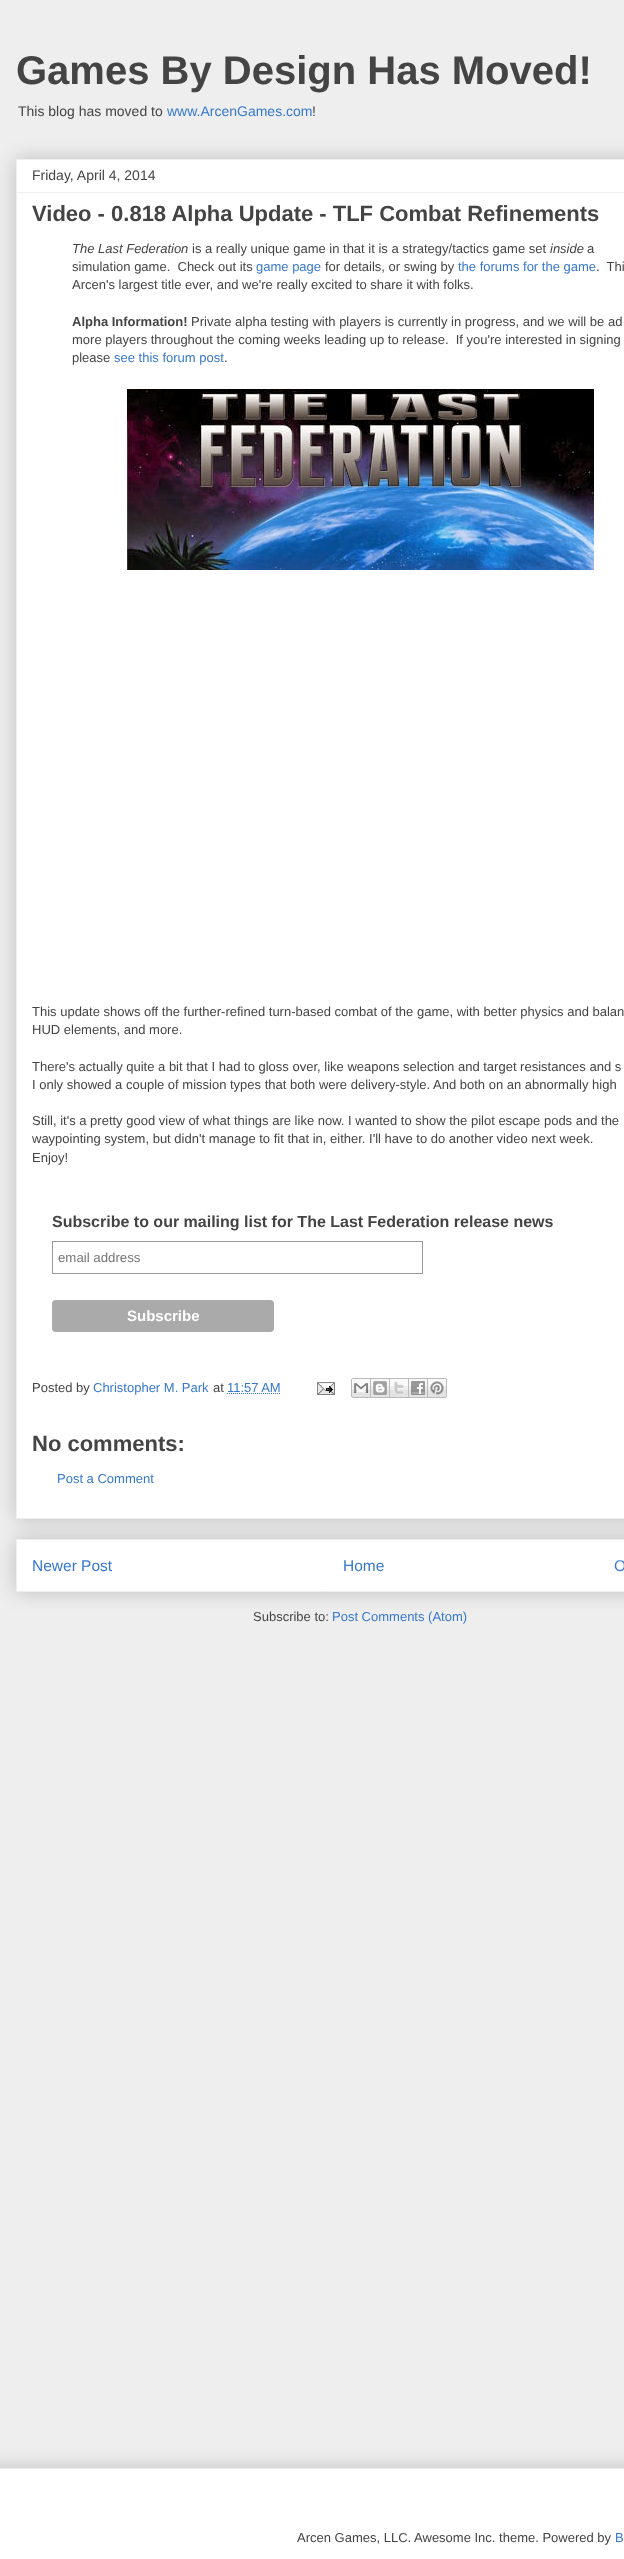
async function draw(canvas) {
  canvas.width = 624;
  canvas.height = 2559;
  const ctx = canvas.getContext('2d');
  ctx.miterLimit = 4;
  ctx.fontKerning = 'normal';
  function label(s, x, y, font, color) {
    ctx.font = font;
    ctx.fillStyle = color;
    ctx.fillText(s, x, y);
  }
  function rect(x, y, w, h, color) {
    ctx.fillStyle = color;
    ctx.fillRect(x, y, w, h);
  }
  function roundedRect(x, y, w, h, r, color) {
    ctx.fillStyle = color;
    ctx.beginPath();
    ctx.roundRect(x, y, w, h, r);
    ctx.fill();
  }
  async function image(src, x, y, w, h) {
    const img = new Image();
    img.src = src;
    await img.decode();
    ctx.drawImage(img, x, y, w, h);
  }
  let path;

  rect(0, 0, 624, 2559, '#eee');
  label('Games By Design Has Moved!', 16, 84, 'bold 40px Liberation Sans', '#444');
  label('This blog has moved to', 18, 116, '14px Liberation Sans', '#444');
  label('www.ArcenGames.com', 167, 116, '14px Liberation Sans', '#3778cd');
  label('!', 312, 116, '14px Liberation Sans', '#444');
  ctx.fillStyle = '#00000033';
  ctx.filter = 'blur(10px)';
  ctx.beginPath();
  ctx.rect(16, 1539, 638, 53);
  ctx.fill();
  ctx.filter = 'none';
  ctx.fillStyle = '#fff';
  ctx.beginPath();
  ctx.rect(16.5, 1539.5, 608, 52);
  ctx.fill();
  ctx.strokeStyle = '#eee';
  ctx.stroke();
  ctx.fillStyle = '#00000033';
  ctx.filter = 'blur(10px)';
  ctx.beginPath();
  ctx.rect(16, 159, 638, 1360);
  ctx.fill();
  ctx.filter = 'none';
  ctx.fillStyle = '#fff';
  ctx.beginPath();
  ctx.rect(16.5, 159.5, 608, 1359);
  ctx.fill();
  ctx.stroke();
  label('Friday, April 4, 2014', 32, 180, '14px Liberation Sans', '#444');
  rect(17, 192, 607, 1, '#eee');
  label('Video - 0.818 Alpha Update - TLF Combat Refinements', 32, 221, 'bold 22px Liberation Sans', '#444');
  label('The Last Federation', 72, 253, 'italic 13px Liberation Sans', '#444');
  label('is a really unique game in that it is a strategy/tactics game set', 192, 253, '13px Liberation Sans', '#444');
  label('inside', 550, 253, 'italic 13px Liberation Sans', '#444');
  label('a', 587, 253, '13px Liberation Sans', '#444');
  label('simulation game.  Check out its', 72, 271, '13px Liberation Sans', '#444');
  label('game page', 256, 271, '13px Liberation Sans', '#3778cd');
  label('for details, or swing by', 325, 271, '13px Liberation Sans', '#444');
  label('the forums for the game', 458, 271, '13px Liberation Sans', '#3778cd');
  label('.  Thi', 596, 271, '13px Liberation Sans', '#444');
  label('Arcen\'s largest title ever, and we\'re really excited to share it with folks.', 72, 289, '13px Liberation Sans', '#444');
  label('Alpha Information!', 72, 326, 'bold 13px Liberation Sans', '#444');
  label('Private alpha testing with players is currently in progress, and we will be ad', 191, 326, '13px Liberation Sans', '#444');
  label('more players throughout the coming weeks leading up to release.  If you\'re interested in signing', 72, 344, '13px Liberation Sans', '#444');
  label('please', 72, 362, '13px Liberation Sans', '#444');
  label('see this forum post', 114, 362, '13px Liberation Sans', '#3778cd');
  label('.', 224, 362, '13px Liberation Sans', '#444');
  await image('assets/img1.png', 127, 389, 467, 181);
  label('This update shows off the further-refined turn-based combat of the game, with better physics and balan', 32, 1016, '13px Liberation Sans', '#444');
  label('HUD elements, and more.', 32, 1034, '13px Liberation Sans', '#444');
  label('There\'s actually quite a bit that I had to gloss over, like weapons selection and target resistances and s', 32, 1071, '13px Liberation Sans', '#444');
  label('I only showed a couple of mission types that both were delivery-style. And both on an abnormally high', 32, 1089, '13px Liberation Sans', '#444');
  label('Still, it\'s a pretty good view of what things are like now. I wanted to show the pilot escape pods and the', 32, 1125, '13px Liberation Sans', '#444');
  label('waypointing system, but didn\'t manage to fit that in, either. I\'ll have to do another video next week.', 32, 1143, '13px Liberation Sans', '#444');
  label('Enjoy!', 32, 1162, '13px Liberation Sans', '#444');
  label('Subscribe to our mailing list for The Last Federation release news', 52, 1227, 'bold 16px Liberation Sans', '#444');
  ctx.strokeStyle = '#999';
  ctx.strokeRect(52.5, 1241.5, 370, 32);
  label('email address', 58, 1262, '13.25px Liberation Sans', '#757575');
  roundedRect(52, 1300, 222, 32, 4, '#aaa');
  label('Subscribe', 127, 1321, 'bold 15px Liberation Sans', '#fff');
  label('Posted by', 32, 1392, '13px Liberation Sans', '#444');
  label('Christopher M. Park', 93, 1392, '13px Liberation Sans', '#3778cd');
  label('at', 213, 1392, '13px Liberation Sans', '#444');
  label('11:57 AM', 227, 1392, '13px Liberation Sans', '#3778cd');
  path = new Path2D('M227 1393.5H281');
  ctx.strokeStyle = '#3778cd';
  ctx.setLineDash([1, 1]);
  ctx.stroke(path);
  await image('assets/img2.png', 317, 1382, 18, 13);
  await image('assets/img3.png', 351, 1378, 20, 20);
  await image('assets/img4.png', 371, 1378, 19, 20);
  await image('assets/img5.png', 390, 1378, 19, 20);
  await image('assets/img6.png', 409, 1378, 19, 20);
  await image('assets/img7.png', 428, 1378, 19, 20);
  label('No comments:', 32, 1451, 'bold 22px Liberation Sans', '#444');
  label('Post a Comment', 57, 1483, '13px Liberation Sans', '#3778cd');
  label('Newer Post', 32, 1571, '15.5px Liberation Sans', '#3778cd');
  label('Home', 343, 1571, '15.5px Liberation Sans', '#3778cd');
  label('O', 614, 1571, '15.5px Liberation Sans', '#3778cd');
  label('Subscribe to:', 253, 1621, '13px Liberation Sans', '#444');
  label('Post Comments (Atom)', 332, 1621, '13px Liberation Sans', '#3778cd');
  ctx.fillStyle = '#00000033';
  ctx.filter = 'blur(10px)';
  ctx.beginPath();
  ctx.rect(-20, 2468, 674, 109);
  ctx.fill();
  ctx.filter = 'none';
  rect(0, 2469, 624, 90, '#fff');
  rect(0, 2468, 624, 1, '#eee');
  label('Arcen Games, LLC. Awesome Inc. theme. Powered by', 297, 2542, '13px Liberation Sans', '#444');
  label('B', 615, 2542, '13px Liberation Sans', '#3778cd');
}

draw(document.querySelector('canvas'));
